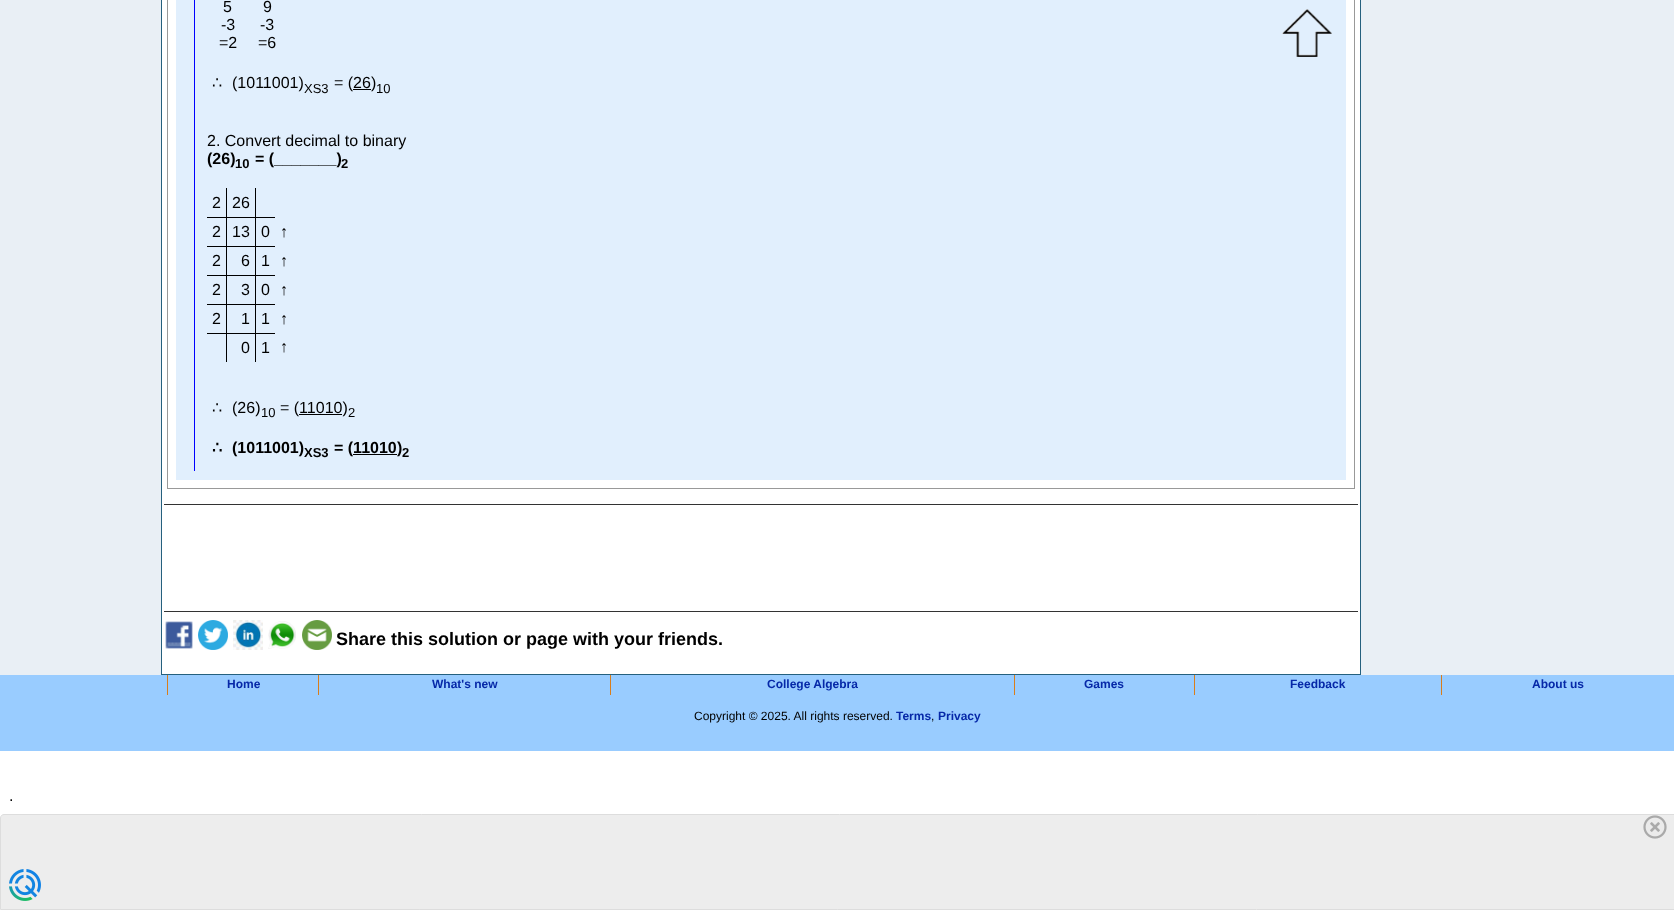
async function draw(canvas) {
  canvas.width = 1674;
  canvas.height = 910;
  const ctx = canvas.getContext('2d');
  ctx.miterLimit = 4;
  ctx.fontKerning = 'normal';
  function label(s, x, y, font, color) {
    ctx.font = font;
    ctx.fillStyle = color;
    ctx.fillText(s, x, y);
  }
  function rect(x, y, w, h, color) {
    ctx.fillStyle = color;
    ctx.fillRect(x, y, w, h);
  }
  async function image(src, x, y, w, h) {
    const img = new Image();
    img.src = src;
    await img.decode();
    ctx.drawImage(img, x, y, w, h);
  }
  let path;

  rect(0, 0, 1674, 910, '#fff');
  rect(0, 0, 161, 675, '#e9eff5');
  rect(1360, 0, 1, 675, '#25607e');
  rect(161, 674, 1200, 1, '#25607e');
  rect(161, 0, 1, 675, '#25607e');
  rect(1354, 0, 1, 489, '#999');
  rect(167, 488, 1188, 1, '#999');
  rect(167, 0, 1, 489, '#999');
  rect(176, 0, 1170, 480, '#e1effd');
  rect(194, 0, 1, 471, '#00f');
  label('5', 223, 12, '16px Liberation Sans', '#000');
  label('-3', 221, 30, '16px Liberation Sans', '#000');
  label('=2', 219, 48, '16px Liberation Sans', '#000');
  label('9', 263, 12, '16px Liberation Sans', '#000');
  label('-3', 260, 30, '16px Liberation Sans', '#000');
  label('=6', 258, 48, '16px Liberation Sans', '#000');
  label('∴', 212, 88, '16px DejaVu Sans', '#000');
  label('(1011001)', 232, 88, '16px Liberation Sans', '#000');
  label('XS3', 304, 93, '13px Liberation Sans', '#000');
  label('= (26', 334, 88, '16px Liberation Sans', '#000');
  rect(353, 89, 18, 1, '#000');
  label(')', 371, 88, '16px Liberation Sans', '#000');
  label('10', 376, 93, '13px Liberation Sans', '#000');
  label('2. Convert decimal to binary', 207, 146, '16px Liberation Sans', '#000');
  label('(26)', 207, 164, 'bold 16px Liberation Sans', '#000');
  label('10', 235, 168, 'bold 13px Liberation Sans', '#000');
  label('= (_______)', 255, 164, 'bold 16px Liberation Sans', '#000');
  label('2', 341, 168, 'bold 13px Liberation Sans', '#000');
  rect(255, 333, 1, 29, '#000');
  rect(255, 333, 20, 1, '#000');
  rect(255, 304, 1, 30, '#000');
  rect(255, 304, 20, 1, '#000');
  rect(255, 275, 1, 30, '#000');
  rect(255, 275, 20, 1, '#000');
  rect(255, 246, 1, 30, '#000');
  rect(255, 246, 20, 1, '#000');
  rect(255, 217, 1, 30, '#000');
  rect(255, 217, 20, 1, '#000');
  rect(255, 188, 1, 30, '#000');
  rect(226, 333, 1, 29, '#000');
  rect(226, 333, 30, 1, '#000');
  rect(226, 304, 1, 30, '#000');
  rect(226, 304, 30, 1, '#000');
  rect(226, 275, 1, 30, '#000');
  rect(226, 275, 30, 1, '#000');
  rect(226, 246, 1, 30, '#000');
  rect(226, 246, 30, 1, '#000');
  rect(226, 217, 1, 30, '#000');
  rect(226, 217, 30, 1, '#000');
  rect(226, 188, 1, 30, '#000');
  rect(207, 217, 20, 1, '#000');
  label('2', 212, 208, '16px Liberation Sans', '#000');
  label('26', 232, 208, '16px Liberation Sans', '#000');
  rect(207, 246, 20, 1, '#000');
  label('2', 212, 237, '16px Liberation Sans', '#000');
  label('13', 232, 237, '16px Liberation Sans', '#000');
  label('0', 261, 237, '16px Liberation Sans', '#000');
  label('↑', 280, 237, '16px Liberation Sans', '#000');
  rect(207, 275, 20, 1, '#000');
  label('2', 212, 266, '16px Liberation Sans', '#000');
  label('6', 241, 266, '16px Liberation Sans', '#000');
  label('1', 261, 266, '16px Liberation Sans', '#000');
  label('↑', 280, 266, '16px Liberation Sans', '#000');
  rect(207, 304, 20, 1, '#000');
  label('2', 212, 295, '16px Liberation Sans', '#000');
  label('3', 241, 295, '16px Liberation Sans', '#000');
  label('0', 261, 295, '16px Liberation Sans', '#000');
  label('↑', 280, 295, '16px Liberation Sans', '#000');
  rect(207, 333, 20, 1, '#000');
  label('2', 212, 324, '16px Liberation Sans', '#000');
  label('1', 241, 324, '16px Liberation Sans', '#000');
  label('1', 261, 324, '16px Liberation Sans', '#000');
  label('↑', 280, 324, '16px Liberation Sans', '#000');
  label('0', 241, 353, '16px Liberation Sans', '#000');
  label('1', 261, 353, '16px Liberation Sans', '#000');
  label('↑', 280, 352, '16px Liberation Sans', '#000');
  label('∴', 212, 413, '16px DejaVu Sans', '#000');
  label('(26)', 232, 413, '16px Liberation Sans', '#000');
  label('10', 261, 417, '13px Liberation Sans', '#000');
  label('= (11010)', 280, 413, '16px Liberation Sans', '#000');
  label('2', 348, 417, '13px Liberation Sans', '#000');
  rect(299, 414, 43, 1, '#000');
  label('∴', 212, 453, 'bold 16px DejaVu Sans', '#000');
  label('(1011001)', 232, 453, 'bold 16px Liberation Sans', '#000');
  label('XS3', 304, 457, 'bold 13px Liberation Sans', '#000');
  label('= (11010', 334, 453, 'bold 16px Liberation Sans', '#000');
  rect(353, 454, 44, 1, '#000');
  label(')', 397, 453, 'bold 16px Liberation Sans', '#000');
  label('2', 402, 457, 'bold 13px Liberation Sans', '#000');
  rect(164, 504, 1194, 1, '#333');
  rect(164, 611, 1194, 1, '#333');
  await image('assets/img1.png', 165, 621, 28, 28);
  await image('assets/img2.png', 198, 620, 30, 30);
  await image('assets/img3.png', 233, 620, 30, 30);
  await image('assets/img4.png', 268, 621, 28, 28);
  await image('assets/img5.png', 302, 620, 30, 30);
  label('Share this solution or page with your friends.', 336, 645, 'bold 18px Liberation Sans', '#000');
  rect(1361, 0, 313, 675, '#e9eff5');
  rect(0, 675, 1674, 76, '#9cf');
  rect(167, 675, 1, 20, '#d97d1a');
  label('Home', 227, 688, 'bold 12px Liberation Sans', '#0628a8');
  rect(318, 675, 1, 20, '#d97d1a');
  label('What\'s new', 432, 688, 'bold 12px Liberation Sans', '#0628a8');
  rect(610, 675, 1, 20, '#d97d1a');
  label('College Algebra', 767, 688, 'bold 12px Liberation Sans', '#0628a8');
  rect(1014, 675, 1, 20, '#d97d1a');
  label('Games', 1084, 688, 'bold 12px Liberation Sans', '#0628a8');
  rect(1194, 675, 1, 20, '#d97d1a');
  label('Feedback', 1290, 688, 'bold 12px Liberation Sans', '#0628a8');
  rect(1441, 675, 1, 20, '#d97d1a');
  label('About us', 1532, 688, 'bold 12px Liberation Sans', '#0628a8');
  label('Copyright © 2025. All rights reserved.', 694, 720, '12px Liberation Sans', '#000');
  label('Terms', 896, 720, 'bold 12px Liberation Sans', '#0628a8');
  label(',', 931, 720, '12px Liberation Sans', '#000');
  label('Privacy', 938, 720, 'bold 12px Liberation Sans', '#0628a8');
  label('.', 9, 801, '16px Liberation Sans', '#000');
  await image('assets/img6.png', 1282, 9, 50, 48);
  ctx.fillStyle = '#ededed';
  path = new Path2D('M4 814.5H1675.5V909.5H.5V818C.5 816 2 814.5 4 814.5Z');
  ctx.fill(path);
  ctx.strokeStyle = '#ddd';
  ctx.stroke(path);
  await image('assets/img7.png', 1643, 815, 24, 24);
  await image('assets/img8.png', 9, 869, 32, 32);
}

draw(document.querySelector('canvas'));
